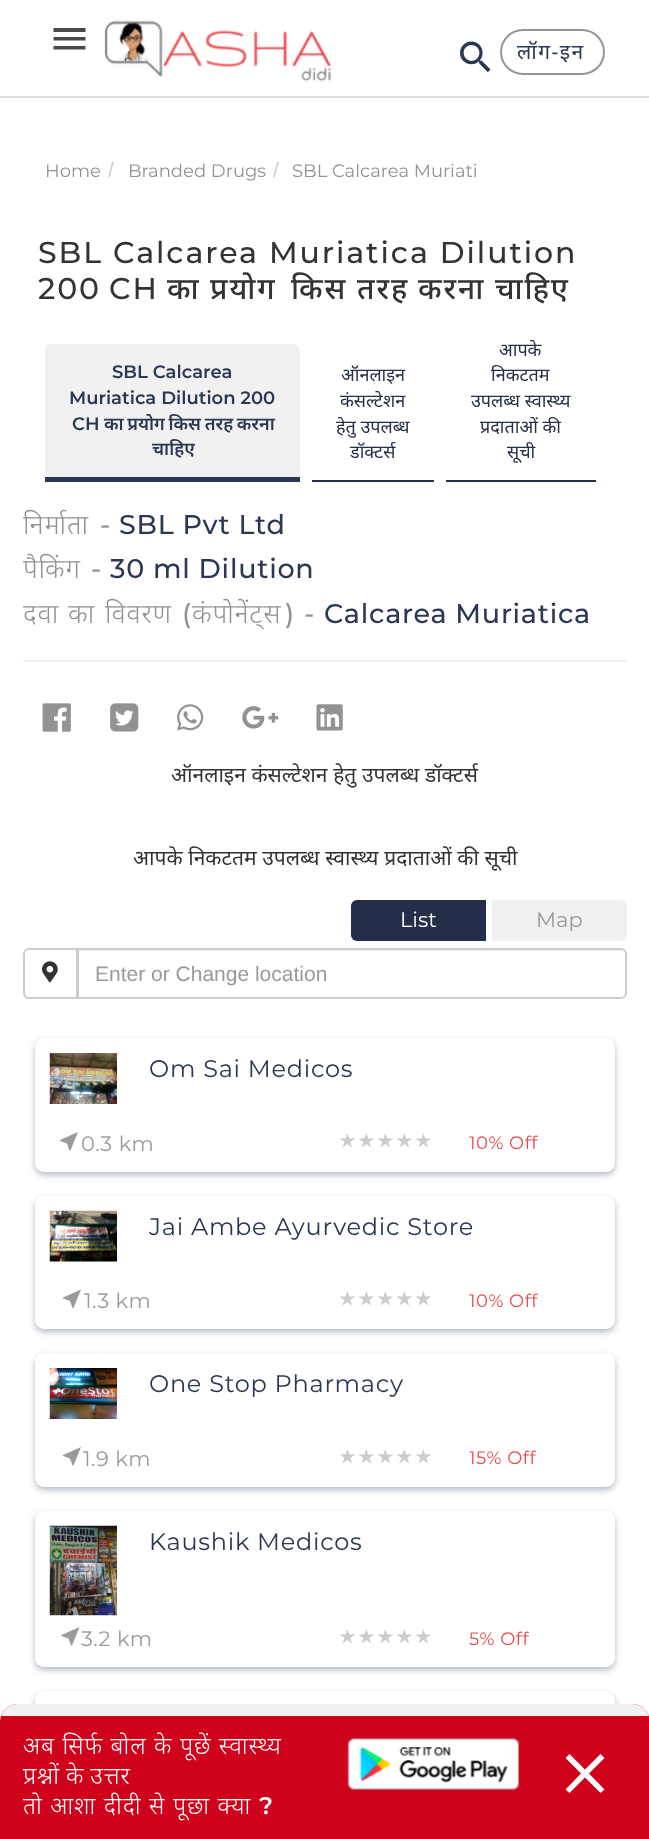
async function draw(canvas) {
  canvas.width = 649;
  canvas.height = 1839;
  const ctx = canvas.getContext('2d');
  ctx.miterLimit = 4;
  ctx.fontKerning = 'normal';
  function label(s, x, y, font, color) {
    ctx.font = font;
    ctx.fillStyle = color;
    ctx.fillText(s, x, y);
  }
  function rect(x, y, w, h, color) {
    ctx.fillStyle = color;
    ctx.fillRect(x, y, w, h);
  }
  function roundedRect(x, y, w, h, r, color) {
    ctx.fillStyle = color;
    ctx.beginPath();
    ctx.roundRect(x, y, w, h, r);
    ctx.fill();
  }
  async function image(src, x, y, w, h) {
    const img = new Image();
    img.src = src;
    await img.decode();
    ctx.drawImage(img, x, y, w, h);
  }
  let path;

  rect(0, 0, 649, 1839, '#fff');
  rect(0, 96, 649, 2, '#ddd');
  ctx.fillStyle = '#4a4a4a';
  path = new Path2D('M53.5 28H85.5V32H53.5ZM53.5 40.5V37H85.5V40.5ZM53.5 49.5V46H85.5V49.5Z');
  ctx.fill(path);
  await image('assets/img1.png', 104, 20, 228, 62);
  await image('assets/img2.png', 460, 41, 31, 32);
  ctx.beginPath();
  ctx.roundRect(501, 30, 103, 44, 22);
  ctx.strokeStyle = '#969696';
  ctx.lineWidth = 2;
  ctx.stroke();
  ctx.letterSpacing = '1.5px';
  label('लॉग-इन', 517, 59, '21px Noto Sans', '#2a3853');
  ctx.letterSpacing = '0px';
  label('Home', 45, 177, '18px Montserrat', '#929292');
  label('/', 108, 177, '21px Liberation Sans', '#ccc');
  label('Branded Drugs', 128, 177, '18px Montserrat', '#929292');
  label('/', 273, 177, '21px Liberation Sans', '#ccc');
  label('SBL Calcarea Muriati', 292, 177, '18px Montserrat', '#929292');
  ctx.letterSpacing = '1.95px';
  label('SBL Calcarea Muriatica Dilution', 38, 263, '500 30px Montserrat', '#333');
  ctx.wordSpacing = '-2px';
  label('200 CH', 38, 299, '500 30px Montserrat', '#333');
  ctx.wordSpacing = '0px';
  label('का', 167, 299, '500 30px Noto Sans', '#333');
  label('प्रयोग', 210, 299, '500 30px Noto Sans', '#333');
  label('किस', 291, 299, '500 30px Noto Sans', '#333');
  label('तरह', 357, 299, '500 30px Noto Sans', '#333');
  label('करना', 418, 299, '500 30px Noto Sans', '#333');
  label('चाहिए', 495, 299, '500 30px Noto Sans', '#333');
  ctx.fillStyle = '#f1f1f1';
  ctx.beginPath();
  ctx.roundRect(45, 344, 255, 138, [6, 6, 0, 0]);
  ctx.fill();
  rect(45, 477, 255, 5, '#2a3853');
  ctx.letterSpacing = '0px';
  label('SBL Calcarea', 112, 378, '600 18px Montserrat', '#2a3853');
  label('Muriatica Dilution 200', 69, 404, '600 18px Montserrat', '#2a3853');
  label('CH', 72, 430, '600 18px Montserrat', '#2a3853');
  ctx.wordSpacing = '-1px';
  label('का प्रयोग किस तरह करना', 104, 430, '600 18px Noto Sans', '#2a3853');
  ctx.wordSpacing = '0px';
  label('चाहिए', 152, 455, '600 18px Noto Sans', '#2a3853');
  rect(312, 480, 122, 2, '#252f47');
  label('ऑनलाइन', 341, 381, '18px Noto Sans', '#252f47');
  label('कंसल्टेशन', 340, 407, '18px Noto Sans', '#252f47');
  label('हेतु उपलब्ध', 336, 433, '18px Noto Sans', '#252f47');
  label('डॉक्टर्स', 350, 458, '18px Noto Sans', '#252f47');
  rect(446, 480, 150, 2, '#252f47');
  label('आपके', 499, 356, '18px Noto Sans', '#252f47');
  label('निकटतम', 491, 381, '18px Noto Sans', '#252f47');
  label('उपलब्ध स्वास्थ्य', 471, 407, '18px Noto Sans', '#252f47');
  label('प्रदाताओं की', 480, 433, '18px Noto Sans', '#252f47');
  label('सूची', 507, 458, '18px Noto Sans', '#252f47');
  ctx.letterSpacing = '0.75px';
  label('निर्माता', 23, 534, '300 27px Noto Sans', '#929292');
  label('-', 100, 534, '500 27px Montserrat', '#929292');
  label('SBL Pvt Ltd', 119, 534, '500 27px Montserrat', '#2a3853');
  label('पैकिंग', 23, 578, '300 27px Noto Sans', '#929292');
  label('-', 91, 578, '500 27px Montserrat', '#929292');
  label('30 ml Dilution', 110, 578, '500 27px Montserrat', '#2a3853');
  label('विवरण', 105, 623, '300 27px Noto Sans', '#929292');
  label('(', 182, 623, '500 27px Montserrat', '#929292');
  label('कंपोनेंट्स', 192, 623, '300 27px Noto Sans', '#929292');
  label('दवा', 23, 623, '300 27px Noto Sans', '#929292');
  label('का', 68, 623, '300 27px Noto Sans', '#929292');
  ctx.wordSpacing = '1px';
  label(') -', 285, 623, '500 27px Montserrat', '#929292');
  ctx.wordSpacing = '0px';
  label('Calcarea Muriatica', 324, 623, '500 27px Montserrat', '#2a3853');
  rect(23, 660, 604, 2, '#eee');
  await image('assets/img3.png', 42, 703, 29, 29);
  await image('assets/img4.png', 110, 703, 29, 29);
  await image('assets/img5.png', 177, 704, 27, 27);
  await image('assets/img6.png', 242, 706, 37, 23);
  await image('assets/img7.png', 316, 704, 27, 27);
  ctx.letterSpacing = '0px';
  ctx.wordSpacing = '0.25px';
  label('ऑनलाइन कंसल्टेशन हेतु उपलब्ध डॉक्टर्स', 171, 782, '21px Noto Sans', '#333');
  label('आपके निकटतम उपलब्ध स्वास्थ्य प्रदाताओं की सूची', 133, 865, '21px Noto Sans', '#333');
  ctx.fillStyle = '#242e48';
  ctx.beginPath();
  ctx.roundRect(351, 900, 135, 41, [6, 0, 0, 6]);
  ctx.fill();
  ctx.wordSpacing = '0px';
  label('List', 400, 927, '21px Montserrat', '#fff');
  ctx.fillStyle = '#f1f1f1';
  ctx.beginPath();
  ctx.roundRect(492, 900, 135, 41, [0, 6, 6, 0]);
  ctx.fill();
  label('Map', 536, 927, '21px Montserrat', '#9b9a9b');
  ctx.beginPath();
  ctx.roundRect(24, 949, 53, 49, [5, 0, 0, 5]);
  ctx.strokeStyle = '#ccc';
  ctx.stroke();
  await image('assets/img8.png', 42, 961, 16, 22);
  ctx.fillStyle = '#fff';
  ctx.beginPath();
  ctx.roundRect(77, 948, 550, 51, [0, 6, 6, 0]);
  ctx.fill();
  ctx.fillStyle = '#ececec';
  path = new Path2D('M78 951H621C623 951 626 953 626 956C626 953 624 950 621 950H78Z');
  ctx.fill(path);
  ctx.beginPath();
  ctx.roundRect(78, 949, 548, 49, [0, 5, 5, 0]);
  ctx.stroke();
  label('Enter or Change location', 95, 981, '21px Liberation Sans', '#9b9a9b');
  ctx.fillStyle = '#29375459';
  ctx.filter = 'blur(3px)';
  ctx.beginPath();
  ctx.roundRect(35, 1041, 580, 134, 9);
  ctx.fill();
  ctx.filter = 'none';
  roundedRect(35, 1038, 580, 134, 9, '#fff');
  await image('assets/img9.png', 49, 1053, 68, 51);
  ctx.letterSpacing = '0.75px';
  label('Om Sai Medicos', 149, 1077, '24px Montserrat', '#2a3853');
  ctx.fillStyle = '#9b9b9b';
  path = new Path2D('M78 1132L70.5 1150.5H69.5L67 1143.5L60 1141V1140Z');
  ctx.fill(path);
  ctx.letterSpacing = '0.5px';
  label('0.3 km', 81, 1151, '21px Montserrat', '#9b9a9b');
  ctx.letterSpacing = '0px';
  label('★', 339, 1147, 'bold 18px DejaVu Sans', '#ccc');
  label('★', 358, 1147, 'bold 18px DejaVu Sans', '#ccc');
  label('★', 377, 1147, 'bold 18px DejaVu Sans', '#ccc');
  label('★', 396, 1147, 'bold 18px DejaVu Sans', '#ccc');
  label('★', 415, 1147, 'bold 18px DejaVu Sans', '#ccc');
  ctx.letterSpacing = '0.5px';
  label('10% Off', 469, 1149, '18px Montserrat', '#ee484b');
  ctx.fillStyle = '#29375459';
  ctx.filter = 'blur(3px)';
  ctx.beginPath();
  ctx.roundRect(35, 1199, 580, 133, 9);
  ctx.fill();
  ctx.filter = 'none';
  roundedRect(35, 1196, 580, 133, 9, '#fff');
  await image('assets/img10.png', 49, 1210, 68, 52);
  ctx.letterSpacing = '0.75px';
  label('Jai Ambe Ayurvedic Store', 149, 1235, '24px Montserrat', '#2a3853');
  ctx.fillStyle = '#9b9b9b';
  path = new Path2D('M81 1289.5L73.5 1308H72.5L70 1301L63 1298.5V1297.5Z');
  ctx.fill(path);
  ctx.letterSpacing = '0.5px';
  label('1.3 km', 84, 1308, '21px Montserrat', '#9b9a9b');
  ctx.letterSpacing = '0px';
  label('★', 339, 1305, 'bold 18px DejaVu Sans', '#ccc');
  label('★', 358, 1305, 'bold 18px DejaVu Sans', '#ccc');
  label('★', 377, 1305, 'bold 18px DejaVu Sans', '#ccc');
  label('★', 396, 1305, 'bold 18px DejaVu Sans', '#ccc');
  label('★', 415, 1305, 'bold 18px DejaVu Sans', '#ccc');
  ctx.letterSpacing = '0.5px';
  label('10% Off', 469, 1307, '18px Montserrat', '#ee484b');
  ctx.fillStyle = '#29375459';
  ctx.filter = 'blur(3px)';
  ctx.beginPath();
  ctx.roundRect(35, 1356, 580, 134, 9);
  ctx.fill();
  ctx.filter = 'none';
  roundedRect(35, 1353, 580, 134, 9, '#fff');
  await image('assets/img11.png', 49, 1368, 68, 51);
  ctx.letterSpacing = '0.75px';
  label('One Stop Pharmacy', 149, 1392, '24px Montserrat', '#2a3853');
  ctx.fillStyle = '#9b9b9b';
  path = new Path2D('M81 1447L73.5 1465.5H72.5L70 1458.5L63 1456V1455Z');
  ctx.fill(path);
  ctx.letterSpacing = '0.5px';
  label('1.9 km', 83, 1466, '21px Montserrat', '#9b9a9b');
  ctx.letterSpacing = '0px';
  label('★', 339, 1463, 'bold 18px DejaVu Sans', '#ccc');
  label('★', 358, 1463, 'bold 18px DejaVu Sans', '#ccc');
  label('★', 377, 1463, 'bold 18px DejaVu Sans', '#ccc');
  label('★', 396, 1463, 'bold 18px DejaVu Sans', '#ccc');
  label('★', 415, 1463, 'bold 18px DejaVu Sans', '#ccc');
  ctx.letterSpacing = '0.5px';
  label('15% Off', 469, 1464, '18px Montserrat', '#ee484b');
  ctx.fillStyle = '#29375459';
  ctx.filter = 'blur(3px)';
  ctx.beginPath();
  ctx.roundRect(35, 1514, 580, 156, 9);
  ctx.fill();
  ctx.filter = 'none';
  roundedRect(35, 1511, 580, 156, 9, '#fff');
  await image('assets/img12.png', 49, 1525, 68, 91);
  ctx.letterSpacing = '0.75px';
  label('Kaushik Medicos', 149, 1550, '24px Montserrat', '#2a3853');
  ctx.fillStyle = '#9b9b9b';
  path = new Path2D('M79.5 1627L72 1645.5H71L68.5 1638.5L61.5 1636V1635Z');
  ctx.fill(path);
  ctx.letterSpacing = '0.5px';
  label('3.2 km', 81, 1646, '21px Montserrat', '#9b9a9b');
  ctx.letterSpacing = '0px';
  label('★', 339, 1643, 'bold 18px DejaVu Sans', '#ccc');
  label('★', 358, 1643, 'bold 18px DejaVu Sans', '#ccc');
  label('★', 377, 1643, 'bold 18px DejaVu Sans', '#ccc');
  label('★', 396, 1643, 'bold 18px DejaVu Sans', '#ccc');
  label('★', 415, 1643, 'bold 18px DejaVu Sans', '#ccc');
  ctx.letterSpacing = '0.5px';
  label('5% Off', 469, 1645, '18px Montserrat', '#ee484b');
  ctx.fillStyle = '#29375459';
  ctx.filter = 'blur(3px)';
  ctx.beginPath();
  ctx.roundRect(35, 1694, 580, 135, 9);
  ctx.fill();
  ctx.filter = 'none';
  roundedRect(35, 1691, 580, 135, 9, '#fff');
  ctx.fillStyle = '#d0011b';
  path = new Path2D('M18 1704H632C642 1704 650 1712 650 1722V1839H0V1722C0 1712 8 1704 18 1704Z');
  ctx.fill(path);
  ctx.save();
  path = new Path2D('M18 1704H632C642 1704 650 1712 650 1722V1839H0V1722C0 1712 8 1704 18 1704Z');
  ctx.clip(path);
  rect(1, 1704, 648, 12, '#f1f1f1');
  ctx.restore();
  ctx.letterSpacing = '0.85px';
  ctx.wordSpacing = '0.5px';
  label('अब सिर्फ बोल के पूछें स्वास्थ्य', 23, 1754, '300 24px Noto Sans', '#fff');
  ctx.wordSpacing = '-1px';
  label('प्रश्नों के उत्तर', 23, 1784, '300 24px Noto Sans', '#fff');
  ctx.wordSpacing = '0.5px';
  label('तो आशा दीदी से पूछा क्या', 23, 1814, '300 24px Noto Sans', '#fff');
  ctx.wordSpacing = '0px';
  label('?', 259, 1814, '600 24px Montserrat', '#fff');
  await image('assets/img13.png', 347, 1738, 172, 52);
  path = new Path2D('M604.5 1758L589 1773.5L604.5 1789.5L600.5 1793L585 1777.5L569.5 1793L565.5 1789.5L581 1773.5L565.5 1758L569.5 1754L585 1769.5L600.5 1754Z');
  ctx.fill(path);
}

draw(document.querySelector('canvas'));
